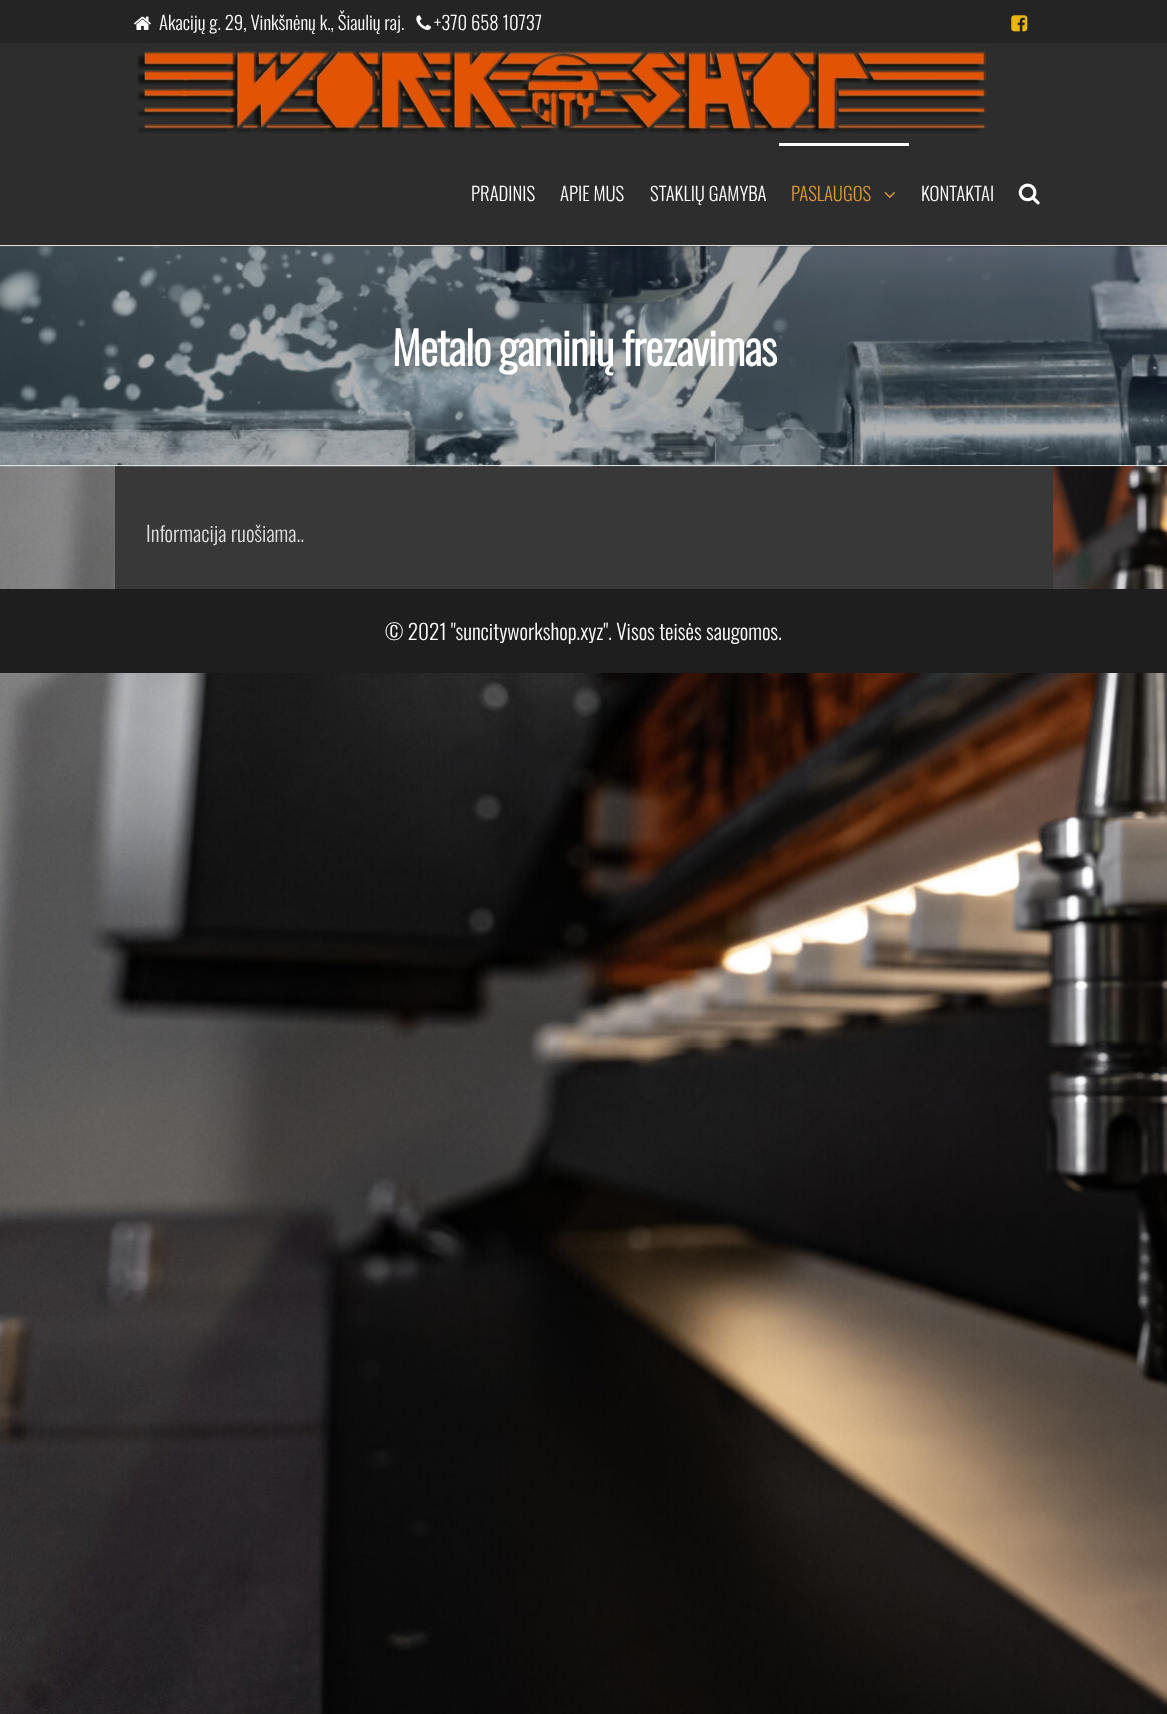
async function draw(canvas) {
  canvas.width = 1167;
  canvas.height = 1714;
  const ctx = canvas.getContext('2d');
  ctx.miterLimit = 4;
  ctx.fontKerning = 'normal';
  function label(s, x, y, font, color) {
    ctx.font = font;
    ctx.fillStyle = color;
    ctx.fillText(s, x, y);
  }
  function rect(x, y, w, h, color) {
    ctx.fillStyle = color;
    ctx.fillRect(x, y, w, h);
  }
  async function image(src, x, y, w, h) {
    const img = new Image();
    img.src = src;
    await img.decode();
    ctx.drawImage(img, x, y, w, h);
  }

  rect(0, 0, 1167, 1714, '#fff');
  await image('assets/img1.png', 0, 246, 1167, 1468);
  rect(0, 0, 1167, 43, '#242424');
  await image('assets/img2.png', 134, 16, 17, 14);
  label('Akacijų g. 29, Vinkšnėnų k., Šiaulių raj.', 159, 30, '300 18.75px Oswald', '#fff');
  await image('assets/img3.png', 416, 15, 15, 15);
  label('+370 658 10737', 434, 30, '300 18.75px Oswald', '#fff');
  await image('assets/img4.png', 1011, 15, 17, 17);
  rect(0, 43, 1167, 202, '#2d2d2d');
  rect(0, 245, 1167, 1, '#e2e2e2');
  await image('assets/img5.png', 137, 45, 850, 90);
  label('PRADINIS', 471, 201, '300 18.75px Oswald', '#fff');
  label('APIE MUS', 560, 201, '300 18.75px Oswald', '#fff');
  label('STAKLIŲ GAMYBA', 650, 201, '300 18.75px Oswald', '#fff');
  rect(779, 143, 130, 3, '#fff');
  label('PASLAUGOS', 791, 201, '300 18.75px Oswald', '#d93');
  await image('assets/img6.png', 884, 192, 11, 6);
  label('KONTAKTAI', 921, 201, '300 18.75px Oswald', '#fff');
  await image('assets/img7.png', 1018, 183, 22, 22);
  rect(115, 466, 938, 123, '#383838');
  await image('assets/img8.png', 0, 246, 1167, 221);
  rect(0, 465, 1167, 1, '#e2e2e2');
  rect(0, 246, 1167, 219, '#0000004d');
  ctx.letterSpacing = '-0.9px';
  label('Metalo gaminių frezavimas', 392, 366, 'bold 45px Oswald', '#fff');
  ctx.letterSpacing = '0px';
  label('Informacija ruošiama..', 146, 542, '300 21.25px Oswald', '#ddd');
  rect(0, 589, 1167, 84, '#1e1e1e');
  label('© 2021 "suncityworkshop.xyz". Visos teisės saugomos.', 385, 640, '300 21.25px Oswald', '#fff');
}

draw(document.querySelector('canvas'));
